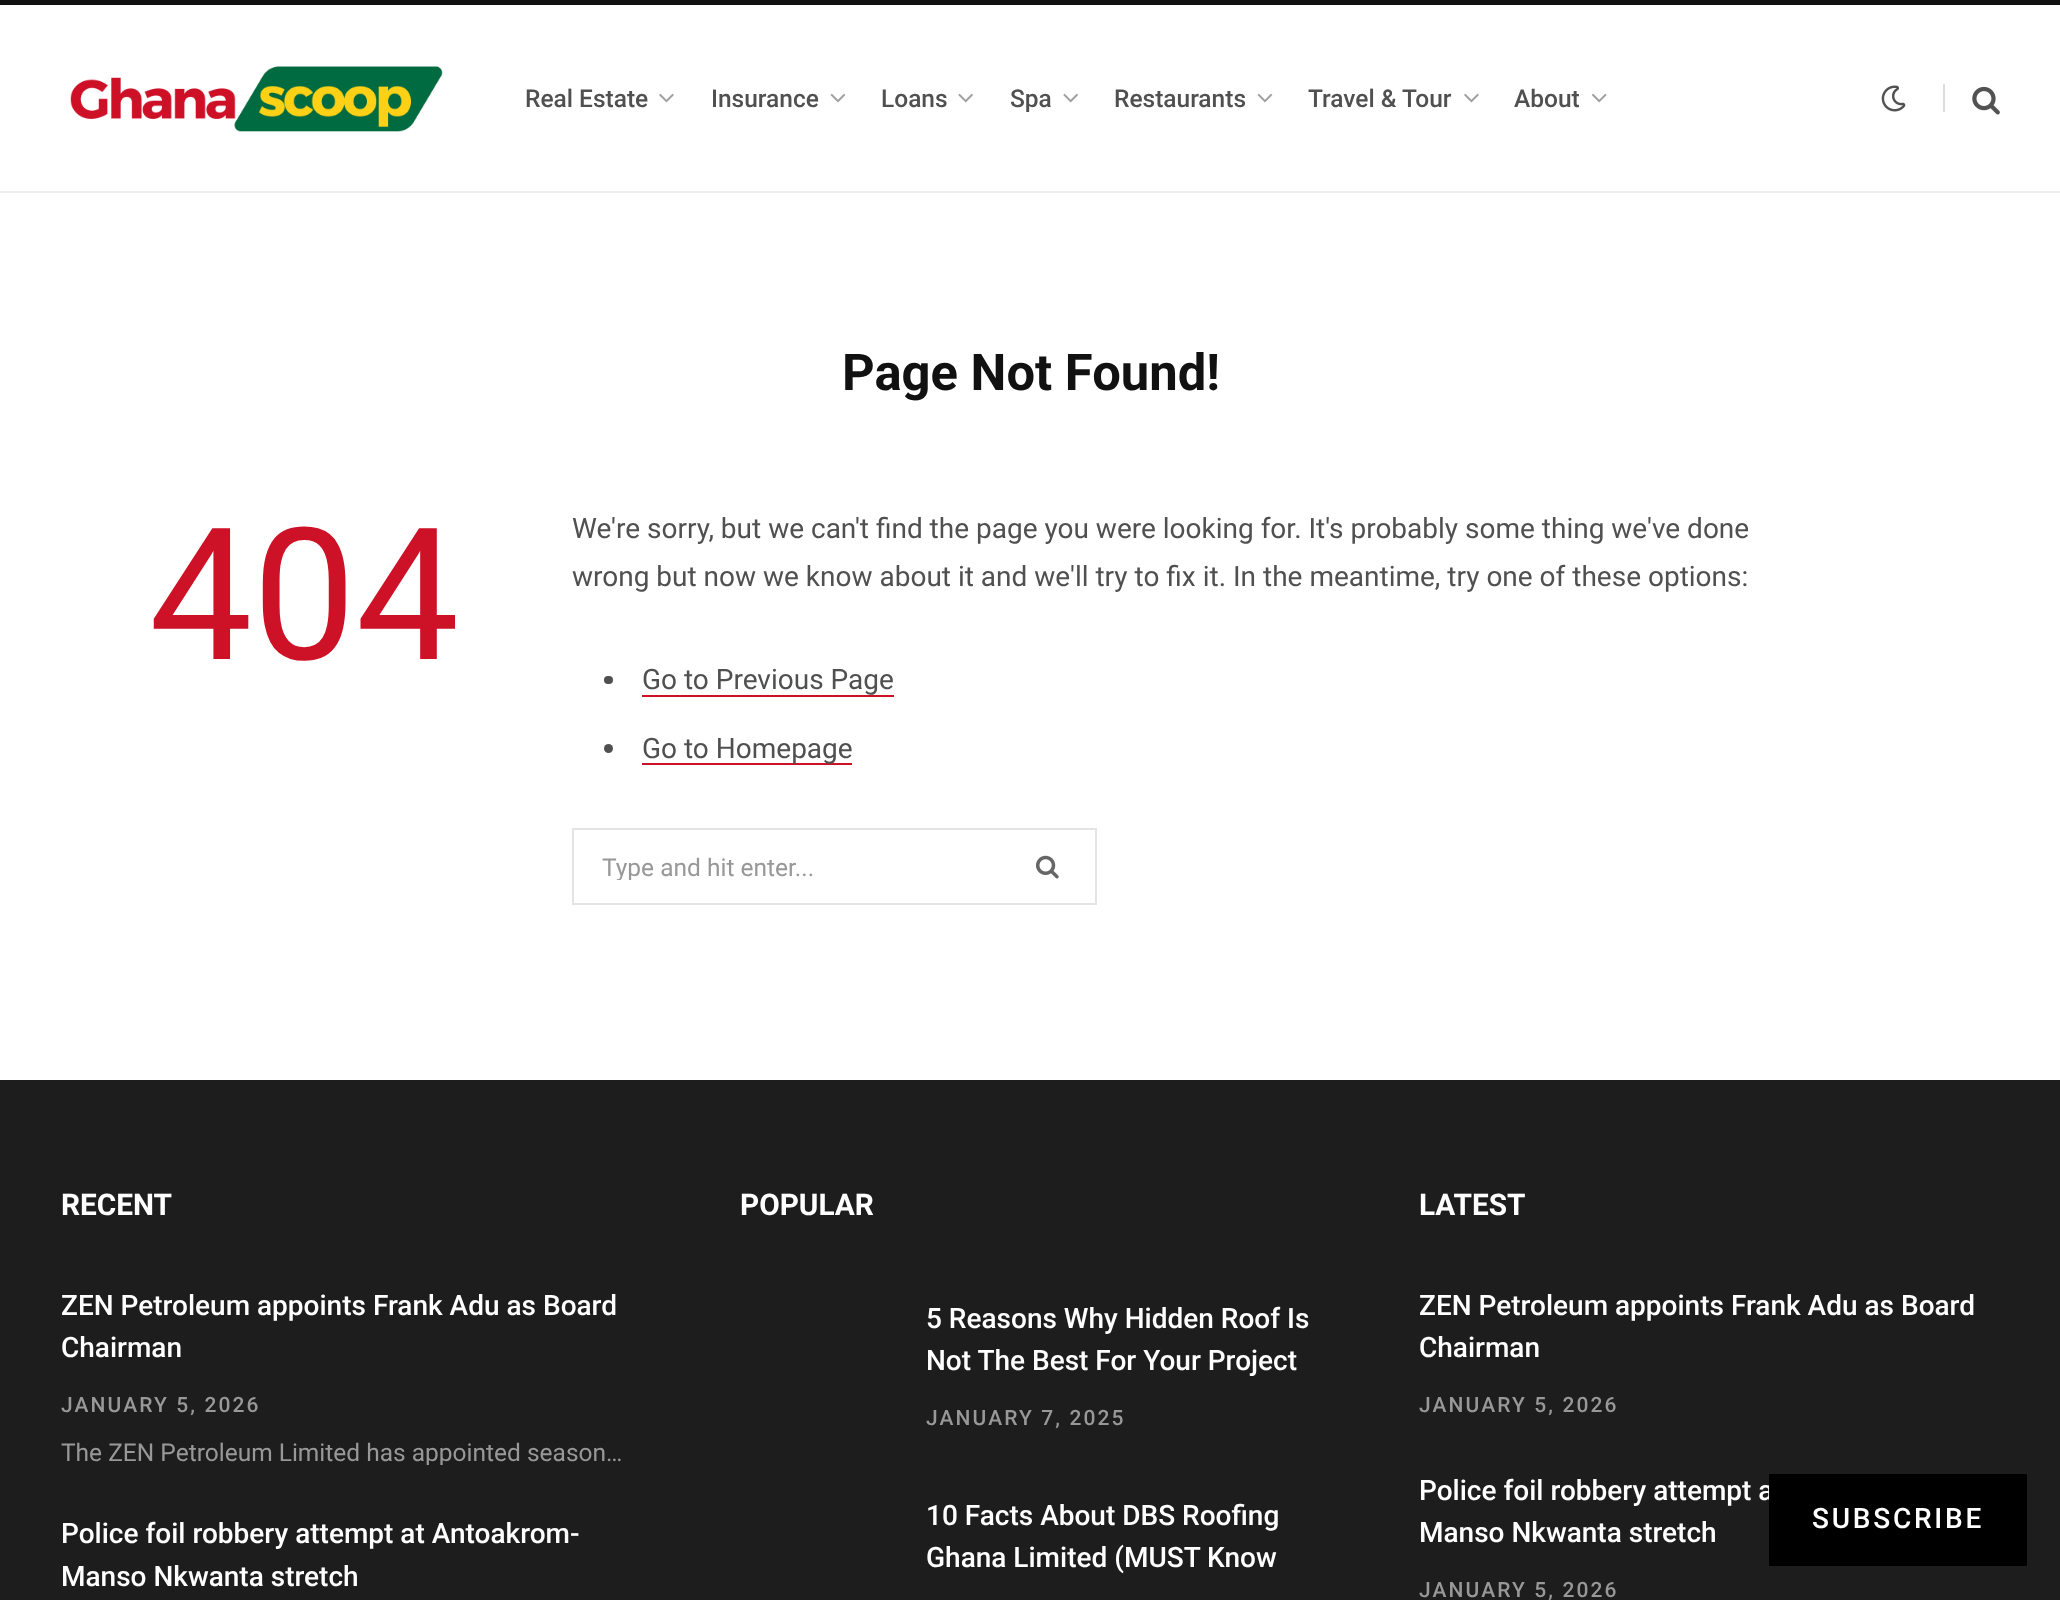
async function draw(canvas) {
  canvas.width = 2060;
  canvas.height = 1600;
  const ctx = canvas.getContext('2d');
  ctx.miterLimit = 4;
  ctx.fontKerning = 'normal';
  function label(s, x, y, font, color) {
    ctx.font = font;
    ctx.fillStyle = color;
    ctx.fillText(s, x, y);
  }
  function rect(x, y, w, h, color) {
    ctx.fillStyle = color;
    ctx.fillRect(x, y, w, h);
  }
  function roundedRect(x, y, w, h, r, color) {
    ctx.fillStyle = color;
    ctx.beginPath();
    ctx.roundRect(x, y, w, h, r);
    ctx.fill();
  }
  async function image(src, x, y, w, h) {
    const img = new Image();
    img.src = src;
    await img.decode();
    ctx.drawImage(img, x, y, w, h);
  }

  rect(0, 0, 2060, 1600, '#fff');
  rect(0, 0, 2060, 5, '#111');
  rect(0, 191, 2060, 2, '#efefef');
  await image('assets/img1.png', 70, 66, 373, 66);
  label('Real Estate', 525, 107, '500 24.5px Roboto', '#505050');
  await image('assets/img2.png', 659, 93, 15, 10);
  label('Insurance', 711, 107, '500 24.5px Roboto', '#505050');
  await image('assets/img3.png', 830, 93, 16, 10);
  label('Loans', 881, 107, '500 24.5px Roboto', '#505050');
  await image('assets/img4.png', 958, 93, 15, 10);
  label('Spa', 1010, 107, '500 24.5px Roboto', '#505050');
  await image('assets/img4.png', 1063, 93, 15, 10);
  label('Restaurants', 1114, 107, '500 24.5px Roboto', '#505050');
  await image('assets/img3.png', 1257, 93, 16, 10);
  label('Travel & Tour', 1308, 107, '500 24.5px Roboto', '#505050');
  await image('assets/img2.png', 1464, 93, 15, 10);
  label('About', 1514, 107, '500 24.5px Roboto', '#505050');
  await image('assets/img5.png', 1592, 93, 15, 10);
  await image('assets/img6.png', 1881, 85, 25, 27);
  rect(1943, 84, 2, 28, '#ddd');
  await image('assets/img7.png', 1972, 86, 28, 29);
  label('Page Not Found!', 842, 390, 'bold 50.75px Roboto', '#111');
  label('404', 149, 659, '184px Roboto', '#cd1127');
  label('We\'re sorry, but we can\'t find the page you were looking for. It\'s probably some thing we\'ve done', 572, 538, '28px Roboto', '#505050');
  label('wrong but now we know about it and we\'ll try to fix it. In the meantime, try one of these options:', 572, 586, '28px Roboto', '#505050');
  roundedRect(604, 676, 9, 8, 4, '#505050');
  label('Go to Previous Page', 642, 689, '28px Roboto', '#505050');
  rect(642, 695, 252, 2, '#cd1127');
  ctx.fillStyle = '#505050';
  ctx.beginPath();
  ctx.arc(608.5, 748.5, 4.5, 0, 2 * Math.PI);
  ctx.fill();
  rect(642, 763, 210, 2, '#cd1127');
  label('Go to Homepage', 642, 758, '28px Roboto', '#505050');
  ctx.strokeStyle = '#e4e4e4';
  ctx.lineWidth = 2;
  ctx.strokeRect(573, 829, 523, 75);
  ctx.save();
  ctx.beginPath();
  ctx.rect(602, 852, 390, 28);
  ctx.clip();
  label('Type and hit enter...', 602, 876, '24.5px Roboto', '#989898');
  ctx.restore();
  await image('assets/img8.png', 1036, 855, 23, 24);
  rect(0, 1080, 2060, 520, '#1d1d1d');
  label('RECENT', 61, 1215, 'bold 29.75px Roboto', '#fff');
  label('ZEN Petroleum appoints Frank Adu as Board', 61, 1315, '500 28px Roboto', '#fff');
  label('Chairman', 61, 1357, '500 28px Roboto', '#fff');
  ctx.letterSpacing = '2.1px';
  label('JANUARY 5, 2026', 61, 1412, '500 21px Roboto', '#989898');
  ctx.save();
  ctx.beginPath();
  ctx.rect(61, 1440, 581, 25);
  ctx.clip();
  ctx.letterSpacing = '0px';
  label('The ZEN Petroleum Limited has appointed season…', 61, 1461, '24.5px Roboto', '#989898');
  ctx.restore();
  ctx.letterSpacing = '0px';
  label('Police foil robbery attempt at Antoakrom-', 61, 1543, '500 28px Roboto', '#fff');
  label('Manso Nkwanta stretch', 61, 1586, '500 28px Roboto', '#fff');
  label('POPULAR', 740, 1215, 'bold 29.75px Roboto', '#fff');
  label('5 Reasons Why Hidden Roof Is', 926, 1328, '500 28px Roboto', '#fff');
  label('Not The Best For Your Project', 926, 1370, '500 28px Roboto', '#fff');
  ctx.letterSpacing = '2.1px';
  label('JANUARY 7, 2025', 926, 1425, '500 21px Roboto', '#989898');
  ctx.letterSpacing = '0px';
  label('10 Facts About DBS Roofing', 926, 1525, '500 28px Roboto', '#fff');
  label('Ghana Limited (MUST Know', 926, 1567, '500 28px Roboto', '#fff');
  label('LATEST', 1419, 1215, 'bold 29.75px Roboto', '#fff');
  label('ZEN Petroleum appoints Frank Adu as Board', 1419, 1315, '500 28px Roboto', '#fff');
  label('Chairman', 1419, 1357, '500 28px Roboto', '#fff');
  ctx.letterSpacing = '2.1px';
  label('JANUARY 5, 2026', 1419, 1412, '500 21px Roboto', '#989898');
  ctx.letterSpacing = '0px';
  label('Police foil robbery attempt a', 1419, 1500, '500 28px Roboto', '#fff');
  label('Manso Nkwanta stretch', 1419, 1542, '500 28px Roboto', '#fff');
  ctx.letterSpacing = '2.1px';
  label('JANUARY 5, 2026', 1419, 1597, '500 21px Roboto', '#989898');
  rect(1769, 1474, 258, 92, '#000');
  ctx.letterSpacing = '2.75px';
  label('SUBSCRIBE', 1812, 1528, '500 28px Roboto', '#fff');
}

draw(document.querySelector('canvas'));
